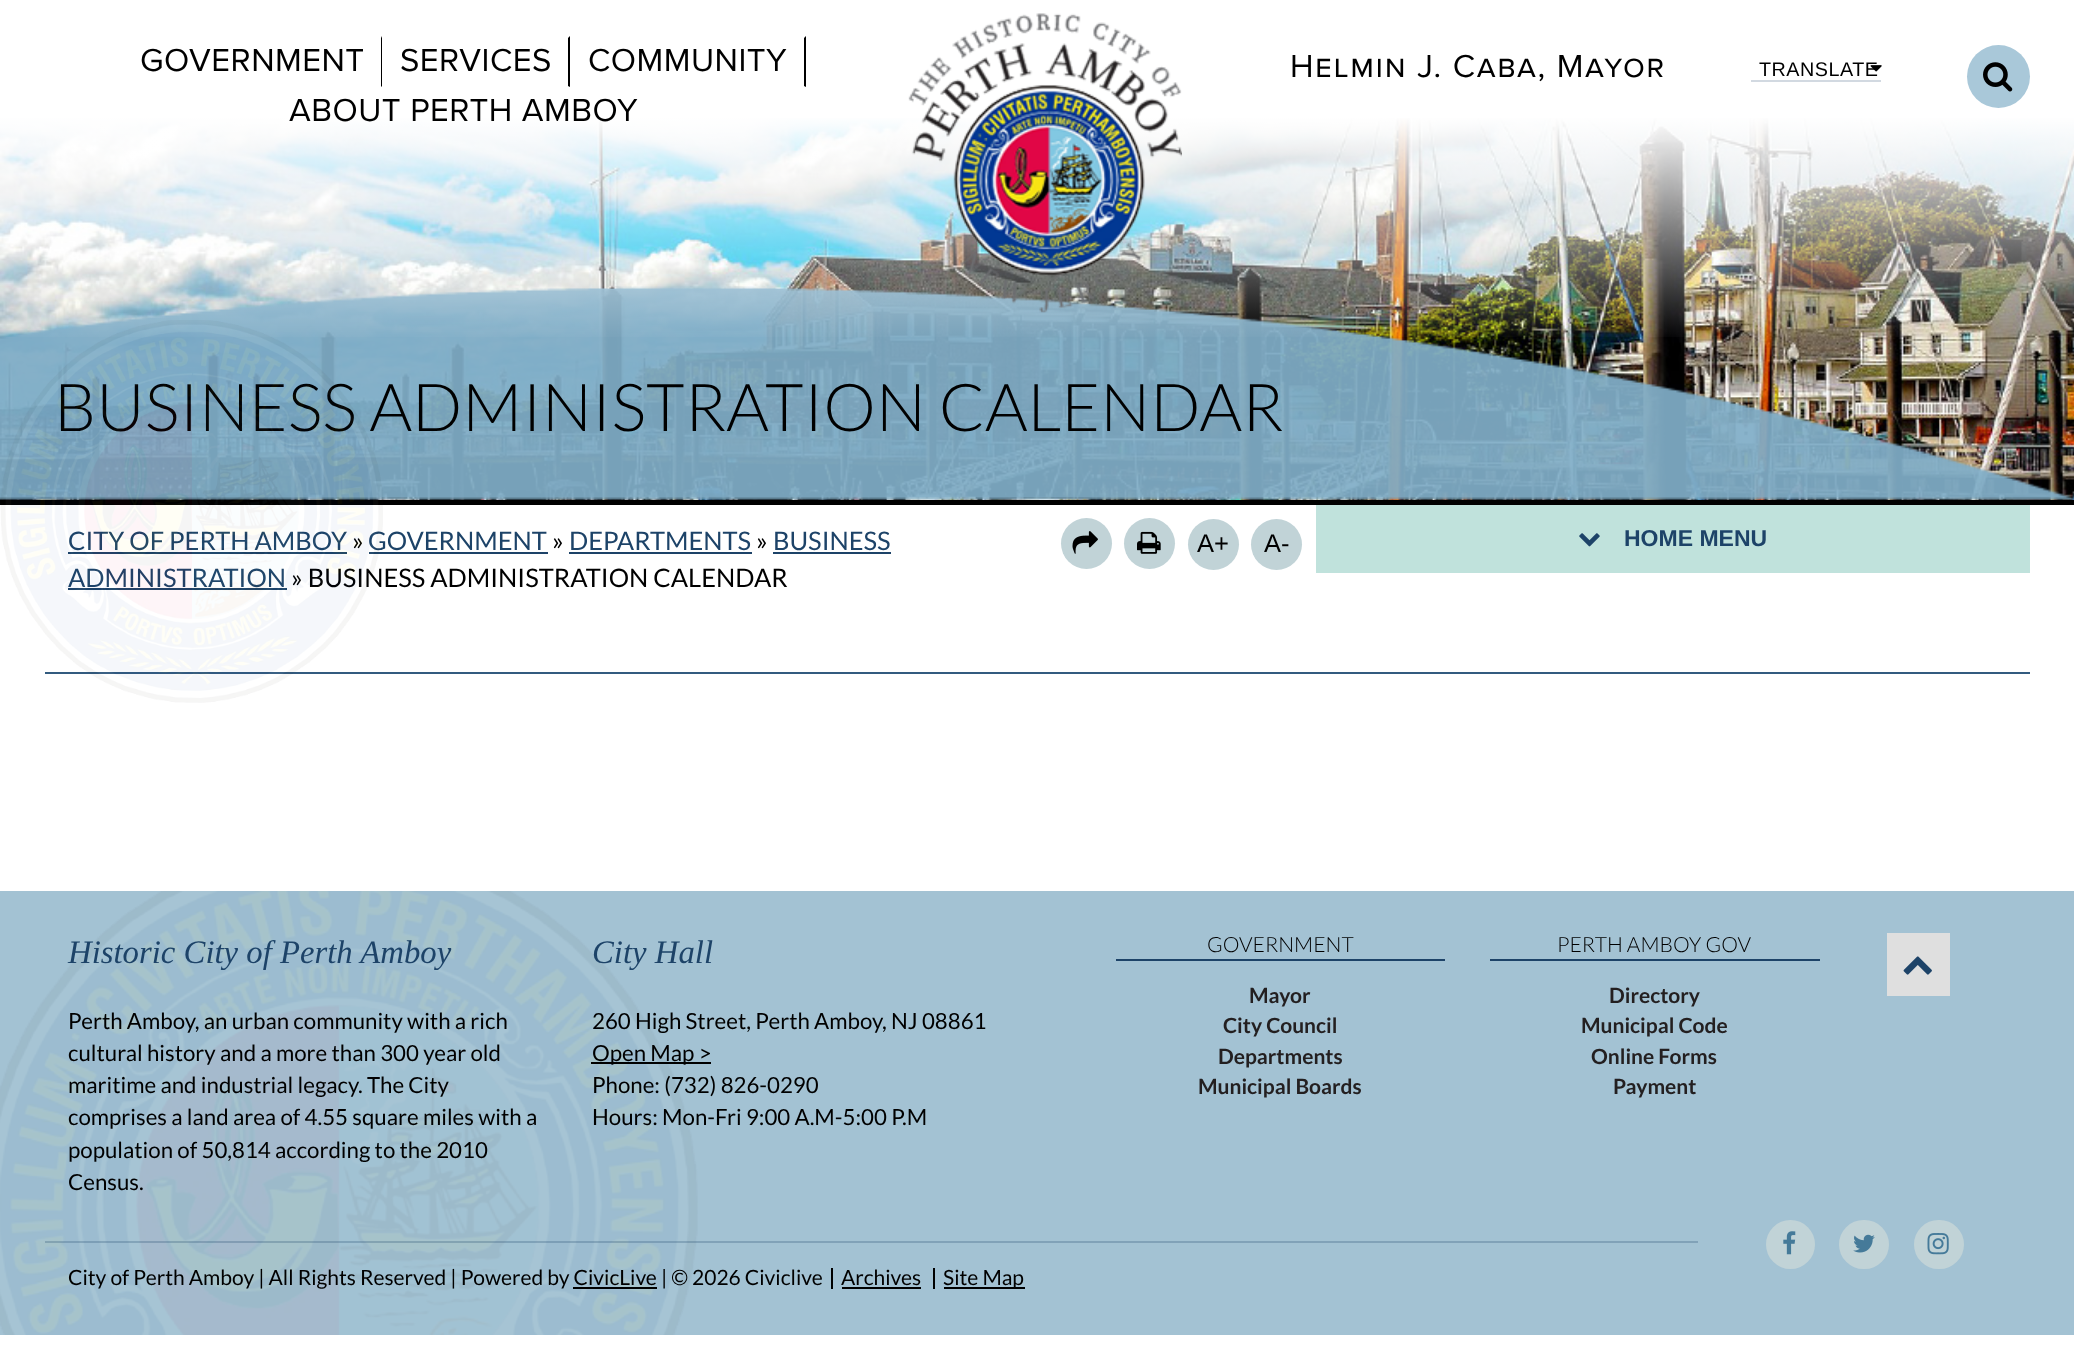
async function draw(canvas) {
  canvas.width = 2074;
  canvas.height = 1358;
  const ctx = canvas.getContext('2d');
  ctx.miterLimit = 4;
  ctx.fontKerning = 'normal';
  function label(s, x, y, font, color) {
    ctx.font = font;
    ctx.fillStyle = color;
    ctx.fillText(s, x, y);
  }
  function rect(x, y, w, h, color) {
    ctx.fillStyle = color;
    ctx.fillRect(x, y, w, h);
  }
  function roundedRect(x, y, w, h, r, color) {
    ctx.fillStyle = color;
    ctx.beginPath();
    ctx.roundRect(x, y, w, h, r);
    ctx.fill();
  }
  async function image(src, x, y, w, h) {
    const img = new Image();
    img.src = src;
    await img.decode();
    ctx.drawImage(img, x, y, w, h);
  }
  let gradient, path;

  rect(0, 0, 2074, 1358, '#fff');
  await image('assets/img4.png', 0, 118, 2074, 382);
  await image('assets/img5.png', 0, 286, 2074, 214);
  rect(0, 500, 2074, 5, '#000');
  label('BUSINESS ADMINISTRATION CALENDAR', 54, 431, '300 66px Lato', '#000');
  rect(45, 672, 1985, 2, '#335b7f');
  label('CITY OF PERTH AMBOY', 68, 550, '25.5px Lato', '#1d4368');
  rect(68, 552, 279, 2, '#1d4368');
  label('»', 352, 550, '25.5px Lato', '#000');
  label('GOVERNMENT', 368, 550, '25.5px Lato', '#1d4368');
  rect(369, 552, 179, 2, '#1d4368');
  label('ADMINISTRATION', 68, 587, '25.5px Lato', '#1d4368');
  rect(68, 588, 219, 2, '#1d4368');
  label('» BUSINESS ADMINISTRATION CALENDAR', 291, 587, '25.5px Lato', '#000');
  await image('assets/img6.png', 0, 320, 383, 383);
  gradient = ctx.createLinearGradient(1037, 0, 1037, 342);
  gradient.addColorStop(0.34, '#fff');
  gradient.addColorStop(1, '#ffffff00');
  ctx.fillStyle = gradient;
  ctx.fillRect(0, 118, 2074, 219);
  ctx.fillStyle = '#000';
  path = new Path2D('M382 36V87L381 86V38Z');
  ctx.fill(path);
  ctx.letterSpacing = '0.5px';
  label('GOVERNMENT', 140, 71, '33px Proxima Nova', '#000');
  path = new Path2D('M570 36V87L568 86V38Z');
  ctx.fill(path);
  label('SERVICES', 400, 71, '33px Proxima Nova', '#000');
  path = new Path2D('M806 36V87L804 86V38Z');
  ctx.fill(path);
  label('COMMUNITY', 588, 71, '33px Proxima Nova', '#000');
  label('ABOUT PERTH AMBOY', 289, 121, '33px Proxima Nova', '#000');
  await image('assets/img1.png', 908, 13, 274, 300);
  ctx.letterSpacing = '1.6px';
  label('Helmin J. Caba, Mayor', 1290, 77, '33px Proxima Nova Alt', '#000');
  rect(1751, 80, 130, 2, '#d2d9e1');
  ctx.letterSpacing = '0.5px';
  label('TRANSLATE', 1759, 76, '19.75px Liberation Sans', '#000');
  await image('assets/img2.png', 1870, 65, 12, 7);
  ctx.fillStyle = '#a9c8d9';
  ctx.beginPath();
  ctx.arc(1998.5, 76.5, 31.5, 0, 2 * Math.PI);
  ctx.fill();
  await image('assets/img3.png', 1983, 62, 30, 30);
  ctx.letterSpacing = '0px';
  label('»', 552, 550, '25.5px Lato', '#000');
  label('DEPARTMENTS', 569, 550, '25.5px Lato', '#1d4368');
  rect(569, 552, 183, 2, '#1d4368');
  label('»', 756, 550, '25.5px Lato', '#000');
  label('BUSINESS', 773, 550, '25.5px Lato', '#1d4368');
  rect(773, 552, 118, 2, '#1d4368');
  ctx.fillStyle = '#c1d3d7';
  ctx.beginPath();
  ctx.arc(1086.5, 543.5, 25.5, 0, 2 * Math.PI);
  ctx.fill();
  await image('assets/img7.png', 1072, 531, 26, 23);
  ctx.beginPath();
  ctx.arc(1149.5, 543.5, 25.5, 0, 2 * Math.PI);
  ctx.fill();
  await image('assets/img8.png', 1137, 531, 24, 23);
  ctx.beginPath();
  ctx.arc(1213.5, 544.5, 25.5, 0, 2 * Math.PI);
  ctx.fill();
  label('A+', 1197, 552, '25.5px Liberation Sans', '#000');
  ctx.fillStyle = '#c1d3d7';
  ctx.beginPath();
  ctx.arc(1276.5, 544.5, 25.5, 0, 2 * Math.PI);
  ctx.fill();
  label('A-', 1264, 552, '25.5px Liberation Sans', '#000');
  rect(1316, 505, 714, 68, '#c0e2dc');
  await image('assets/img9.png', 1579, 533, 21, 14);
  label('HOME MENU', 1624, 546, 'bold 23px Liberation Sans', '#1d4368');
  rect(0, 891, 2074, 444, '#a3c2d3');
  await image('assets/img10.png', 0, 891, 698, 444);
  label('Historic City of Perth Amboy', 68, 963, 'italic 32.75px Liberation Serif', '#1d4368');
  label('Perth Amboy, an urban community with a rich', 68, 1029, '22.25px Lato', '#000');
  label('cultural history and a more than 300 year old', 68, 1061, '22.25px Lato', '#000');
  label('maritime and industrial legacy. The City', 68, 1093, '22.25px Lato', '#000');
  label('comprises a land area of 4.55 square miles with a', 68, 1125, '22.25px Lato', '#000');
  label('population of 50,814 according to the 2010', 68, 1158, '22.25px Lato', '#000');
  label('Census.', 68, 1190, '22.25px Lato', '#000');
  label('City Hall', 592, 963, 'italic 32.75px Liberation Serif', '#1d4368');
  label('260 High Street, Perth Amboy, NJ 08861', 592, 1029, '22.25px Lato', '#000');
  rect(591, 1062, 120, 2, '#000');
  label('Open Map >', 592, 1061, '22.25px Lato', '#000');
  label('Phone: (732) 826-0290', 592, 1093, '22.25px Lato', '#000');
  label('Hours: Mon-Fri 9:00 A.M-5:00 P.M', 592, 1125, '22.25px Lato', '#000');
  rect(1116, 959, 329, 2, '#1d4368');
  label('GOVERNMENT', 1207, 952, '300 21px Lato', '#000');
  label('Mayor', 1249, 1003, 'bold 21px Lato', '#231f20');
  label('City Council', 1223, 1033, 'bold 21px Lato', '#231f20');
  label('Departments', 1218, 1064, 'bold 21px Lato', '#231f20');
  label('Municipal Boards', 1198, 1094, 'bold 21px Lato', '#231f20');
  rect(1490, 959, 330, 2, '#1d4368');
  label('PERTH AMBOY GOV', 1557, 952, '300 21px Lato', '#000');
  label('Directory', 1609, 1003, 'bold 21px Lato', '#231f20');
  label('Municipal Code', 1581, 1033, 'bold 21px Lato', '#231f20');
  label('Online Forms', 1591, 1064, 'bold 21px Lato', '#231f20');
  label('Payment', 1613, 1094, 'bold 21px Lato', '#231f20');
  rect(1887, 933, 63, 63, '#dfdfdf');
  await image('assets/img11.png', 1903, 956, 29, 19);
  ctx.fillStyle = '#c1d3d7';
  ctx.beginPath();
  ctx.arc(1790.5, 1244.5, 24.5, 0, 2 * Math.PI);
  ctx.fill();
  await image('assets/img12.png', 1783, 1231, 13, 24);
  roundedRect(1839, 1220, 50, 49, 24.5, '#c1d3d7');
  await image('assets/img13.png', 1853, 1234, 22, 19);
  roundedRect(1914, 1220, 50, 49, 24.5, '#c1d3d7');
  await image('assets/img14.png', 1927, 1233, 22, 22);
  rect(45, 1241, 1653, 2, '#1d436840');
  label('City of Perth Amboy | All Rights Reserved | Powered by CivicLive | © 2026 Civiclive', 68, 1285, '21px Lato', '#000');
  rect(573, 1287, 84, 2, '#000');
  rect(831, 1268, 2, 21, '#000');
  label('Archives', 841, 1285, '21px Lato', '#000');
  rect(842, 1287, 79, 2, '#000');
  rect(933, 1268, 2, 21, '#000');
  rect(944, 1287, 81, 2, '#000');
  label('Site Map', 943, 1285, '21px Lato', '#000');
}

draw(document.querySelector('canvas'));
